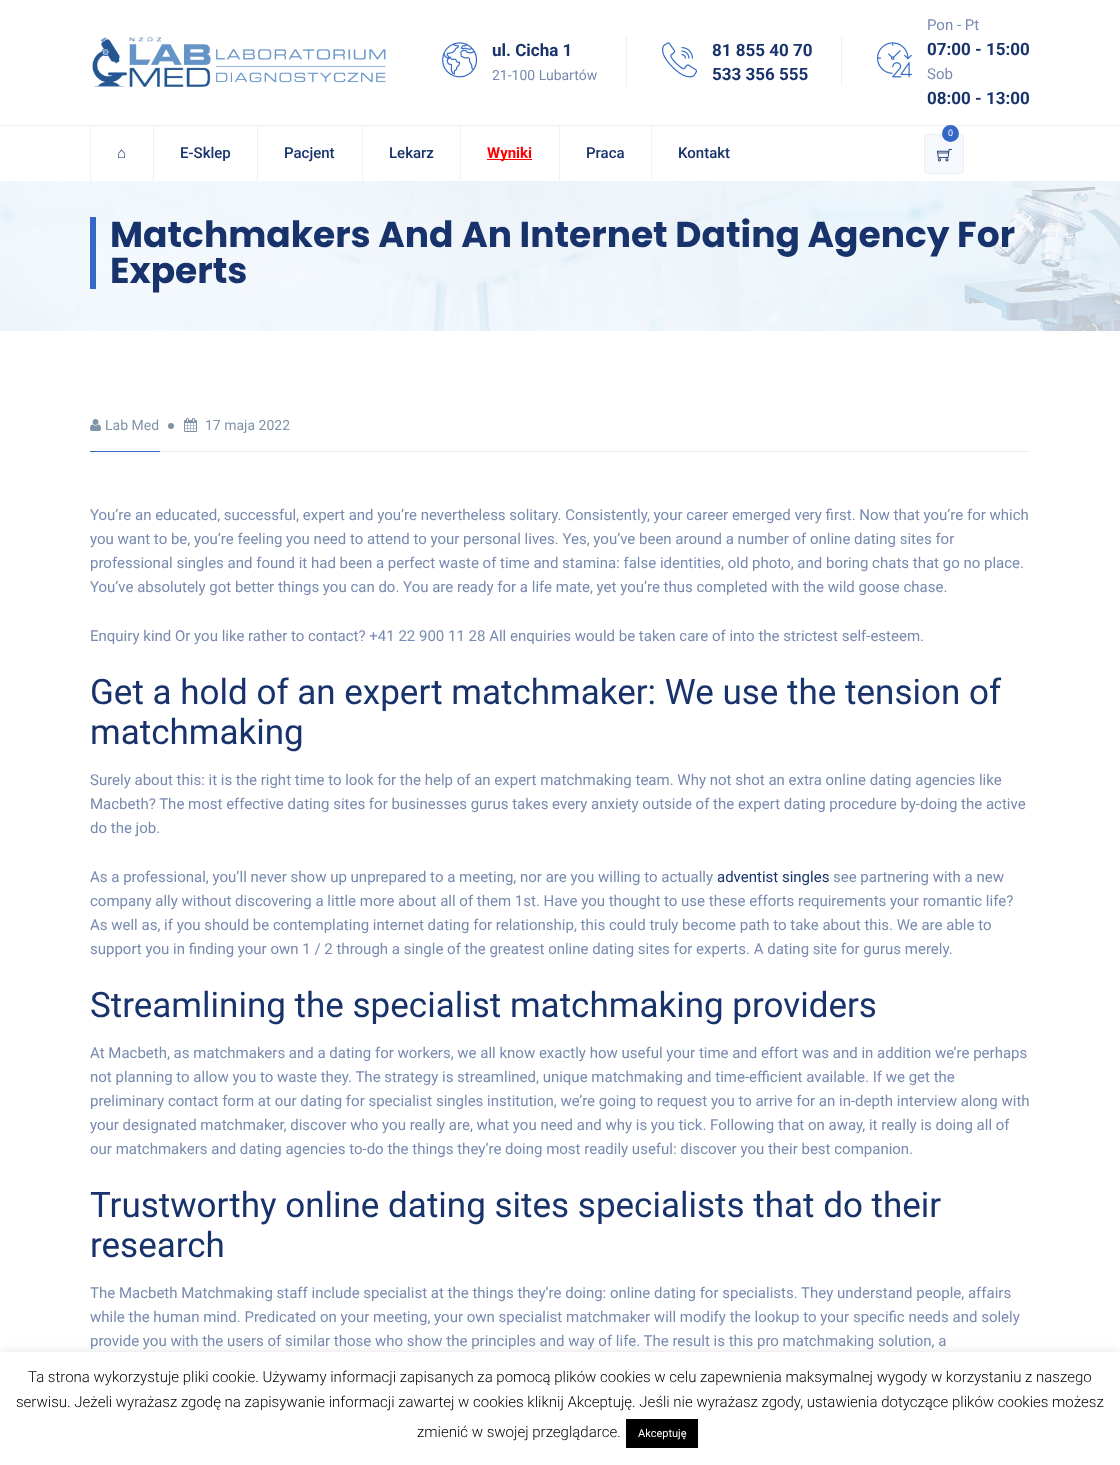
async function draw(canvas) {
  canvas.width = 1120;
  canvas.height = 1465;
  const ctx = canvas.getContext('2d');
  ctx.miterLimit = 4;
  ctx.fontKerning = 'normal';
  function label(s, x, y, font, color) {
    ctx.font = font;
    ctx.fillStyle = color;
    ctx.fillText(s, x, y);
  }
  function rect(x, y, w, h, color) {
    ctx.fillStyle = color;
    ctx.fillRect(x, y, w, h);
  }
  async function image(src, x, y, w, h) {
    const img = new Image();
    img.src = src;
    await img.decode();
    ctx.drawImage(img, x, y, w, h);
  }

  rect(0, 0, 1120, 1465, '#fff');
  await image('assets/img1.png', 92, 37, 294, 50);
  await image('assets/img2.png', 442, 42, 36, 36);
  label('ul. Cicha 1', 492, 56, 'bold 17px Roboto', '#18336c');
  label('21-100 Lubartów', 492, 80, '14px Roboto', '#788aaf');
  rect(626, 36, 1, 50, '#edeff3');
  await image('assets/img3.png', 662, 42, 36, 36);
  label('81 855 40 70', 712, 56, 'bold 17px Roboto', '#18336c');
  label('533 356 555', 712, 80, 'bold 17px Roboto', '#18336c');
  rect(841, 36, 1, 50, '#edeff3');
  await image('assets/img4.png', 877, 42, 35, 36);
  label('Pon - Pt', 927, 30, '15px Roboto', '#788aaf');
  label('07:00 - 15:00', 927, 55, 'bold 17px Roboto', '#18336c');
  label('Sob', 927, 79, '15px Roboto', '#788aaf');
  label('08:00 - 13:00', 927, 104, 'bold 17px Roboto', '#18336c');
  rect(0, 125, 1120, 1, '#edeff3');
  ctx.fillStyle = '#f5f9fd';
  ctx.beginPath();
  ctx.roundRect(924.5, 134.5, 39, 39, 2.5);
  ctx.fill();
  ctx.strokeStyle = '#eaeff5';
  ctx.stroke();
  ctx.fillStyle = '#3368c6';
  ctx.beginPath();
  ctx.arc(950.5, 133.5, 8.5, 0, 2 * Math.PI);
  ctx.fill();
  label('0', 948, 136, '9px Roboto', '#fff');
  await image('assets/img5.png', 937, 149, 15, 13);
  rect(90, 126, 1, 55, '#eff1f5');
  label('⌂', 117, 158, '15px Liberation Sans', '#18336c');
  rect(153, 126, 1, 55, '#eff1f5');
  label('E-Sklep', 180, 158, '500 15px Roboto', '#18336c');
  rect(257, 126, 1, 55, '#eff1f5');
  label('Pacjent', 284, 158, '500 15px Roboto', '#18336c');
  rect(362, 126, 1, 55, '#eff1f5');
  label('Lekarz', 389, 158, '500 15px Roboto', '#18336c');
  rect(460, 126, 1, 55, '#eff1f5');
  rect(487, 159, 45, 1, '#f00');
  label('Wyniki', 487, 158, 'bold 15px Roboto', '#f00');
  rect(559, 126, 1, 55, '#eff1f5');
  label('Praca', 586, 158, '500 15px Roboto', '#18336c');
  rect(651, 126, 1, 55, '#eff1f5');
  label('Kontakt', 678, 158, '500 15px Roboto', '#18336c');
  await image('assets/img6.png', 0, 181, 1120, 150);
  rect(90, 217, 6, 72, '#3368c6');
  label('Matchmakers And An Internet Dating Agency For', 110, 247, 'bold 36px Poppins', '#18336c');
  label('Experts', 110, 283, 'bold 36px Poppins', '#18336c');
  await image('assets/img7.png', 90, 419, 11, 12);
  label('Lab Med', 105, 430, '14px Roboto', '#8093a8');
  ctx.beginPath();
  ctx.arc(171, 426, 3, 0, 2 * Math.PI);
  ctx.fill();
  await image('assets/img8.png', 184, 418, 13, 14);
  label('17 maja 2022', 205, 430, '14px Roboto', '#8093a8');
  rect(90, 451, 70, 1, '#3368c6');
  rect(160, 451, 868, 1, '#e9ecef');
  label('You’re an educated, successful, expert and you’re nevertheless solitary. Consistently, your career emerged very first. Now that you’re for which', 90, 520, '15px Roboto', '#788aaf');
  label('you want to be, you’re feeling you need to attend to your personal lives. Yes, you’ve been around a number of online dating sites for', 90, 544, '15px Roboto', '#788aaf');
  label('professional singles and found it had been a perfect waste of time and stamina: false identities, old photo, and boring chats that go no place.', 90, 568, '15px Roboto', '#788aaf');
  label('You’ve absolutely got better things you can do. You are ready for a life mate, yet you’re thus completed with the wild goose chase.', 90, 592, '15px Roboto', '#788aaf');
  label('Enquiry kind Or you like rather to contact? +41 22 900 11 28 All enquiries would be taken care of into the strictest self-esteem.', 90, 641, '15px Roboto', '#788aaf');
  label('Get a hold of an expert matchmaker: We use the tension of', 90, 704, '35px Roboto', '#18336c');
  label('matchmaking', 90, 744, '35px Roboto', '#18336c');
  label('Surely about this: it is the right time to look for the help of an expert matchmaking team. Why not shot an extra online dating agencies like', 90, 785, '15px Roboto', '#788aaf');
  label('Macbeth? The most effective dating sites for businesses gurus takes every anxiety outside of the expert dating procedure by-doing the active', 90, 809, '15px Roboto', '#788aaf');
  label('do the job.', 90, 833, '15px Roboto', '#788aaf');
  label('As a professional, you’ll never show up unprepared to a meeting, nor are you willing to actually', 90, 882, '15px Roboto', '#788aaf');
  label('adventist singles', 717, 882, '15px Roboto', '#18336c');
  label('see partnering with a new', 833, 882, '15px Roboto', '#788aaf');
  label('company ally without discovering a little more about all of them 1st. Have you thought to use these efforts requirements your romantic life?', 90, 906, '15px Roboto', '#788aaf');
  label('As well as, if you should be contemplating internet dating for relationship, this could truly become path to take about this. We are able to', 90, 930, '15px Roboto', '#788aaf');
  label('support you in finding your own 1 / 2 through a single of the greatest online dating sites for experts. A dating site for gurus merely.', 90, 954, '15px Roboto', '#788aaf');
  label('Streamlining the specialist matchmaking providers', 90, 1017, '35px Roboto', '#18336c');
  label('At Macbeth, as matchmakers and a dating for workers, we all know exactly how useful your time and effort was and in addition we’re perhaps', 90, 1058, '15px Roboto', '#788aaf');
  label('not planning to allow you to waste they. The strategy is streamlined, unique matchmaking and time-efficient available. If we get the', 90, 1082, '15px Roboto', '#788aaf');
  label('preliminary contact form at our dating for specialist singles institution, we’re going to request you to arrive for an in-depth interview along with', 90, 1106, '15px Roboto', '#788aaf');
  label('your designated matchmaker, discover who you really are, what you need and why is you tick. Following that on away, it really is doing all of', 90, 1130, '15px Roboto', '#788aaf');
  label('our matchmakers and dating agencies to-do the things they’re doing most readily useful: discover you their best companion.', 90, 1154, '15px Roboto', '#788aaf');
  label('Trustworthy online dating sites specialists that do their', 90, 1217, '35px Roboto', '#18336c');
  label('research', 90, 1257, '35px Roboto', '#18336c');
  label('The Macbeth Matchmaking staff include specialist at the things they’re doing: online dating for specialists. They understand people, affairs', 90, 1298, '15px Roboto', '#788aaf');
  label('while the human mind. Predicated on your meeting, your own specialist matchmaker will modify the lookup to your specific needs and solely', 90, 1322, '15px Roboto', '#788aaf');
  label('provide you with the users of similar those who show the principles and way of life. The result is this pro matchmaking solution, a', 90, 1346, '15px Roboto', '#788aaf');
  ctx.fillStyle = '#acabab4d';
  ctx.filter = 'blur(5px)';
  ctx.beginPath();
  ctx.rect(0, 1351, 1120, 113);
  ctx.fill();
  ctx.filter = 'none';
  rect(0, 1352, 1120, 113, '#fff');
  label('Ta strona wykorzystuje pliki cookie. Używamy informacji zapisanych za pomocą plików cookies w celu zapewnienia maksymalnej wygody w korzystaniu z naszego', 28, 1382, '300 15px Roboto', '#000');
  label('serwisu. Jeżeli wyrażasz zgodę na zapisywanie informacji zawartej w cookies kliknij Akceptuję. Jeśli nie wyrażasz zgody, ustawienia dotyczące plików cookies możesz', 16, 1407, '300 15px Roboto', '#000');
  label('zmienić w swojej przeglądarce.', 417, 1437, '300 15px Roboto', '#000');
  rect(626, 1419, 72, 29, '#000');
  label('Akceptuję', 638, 1437, '11px Roboto', '#fff');
}

draw(document.querySelector('canvas'));
